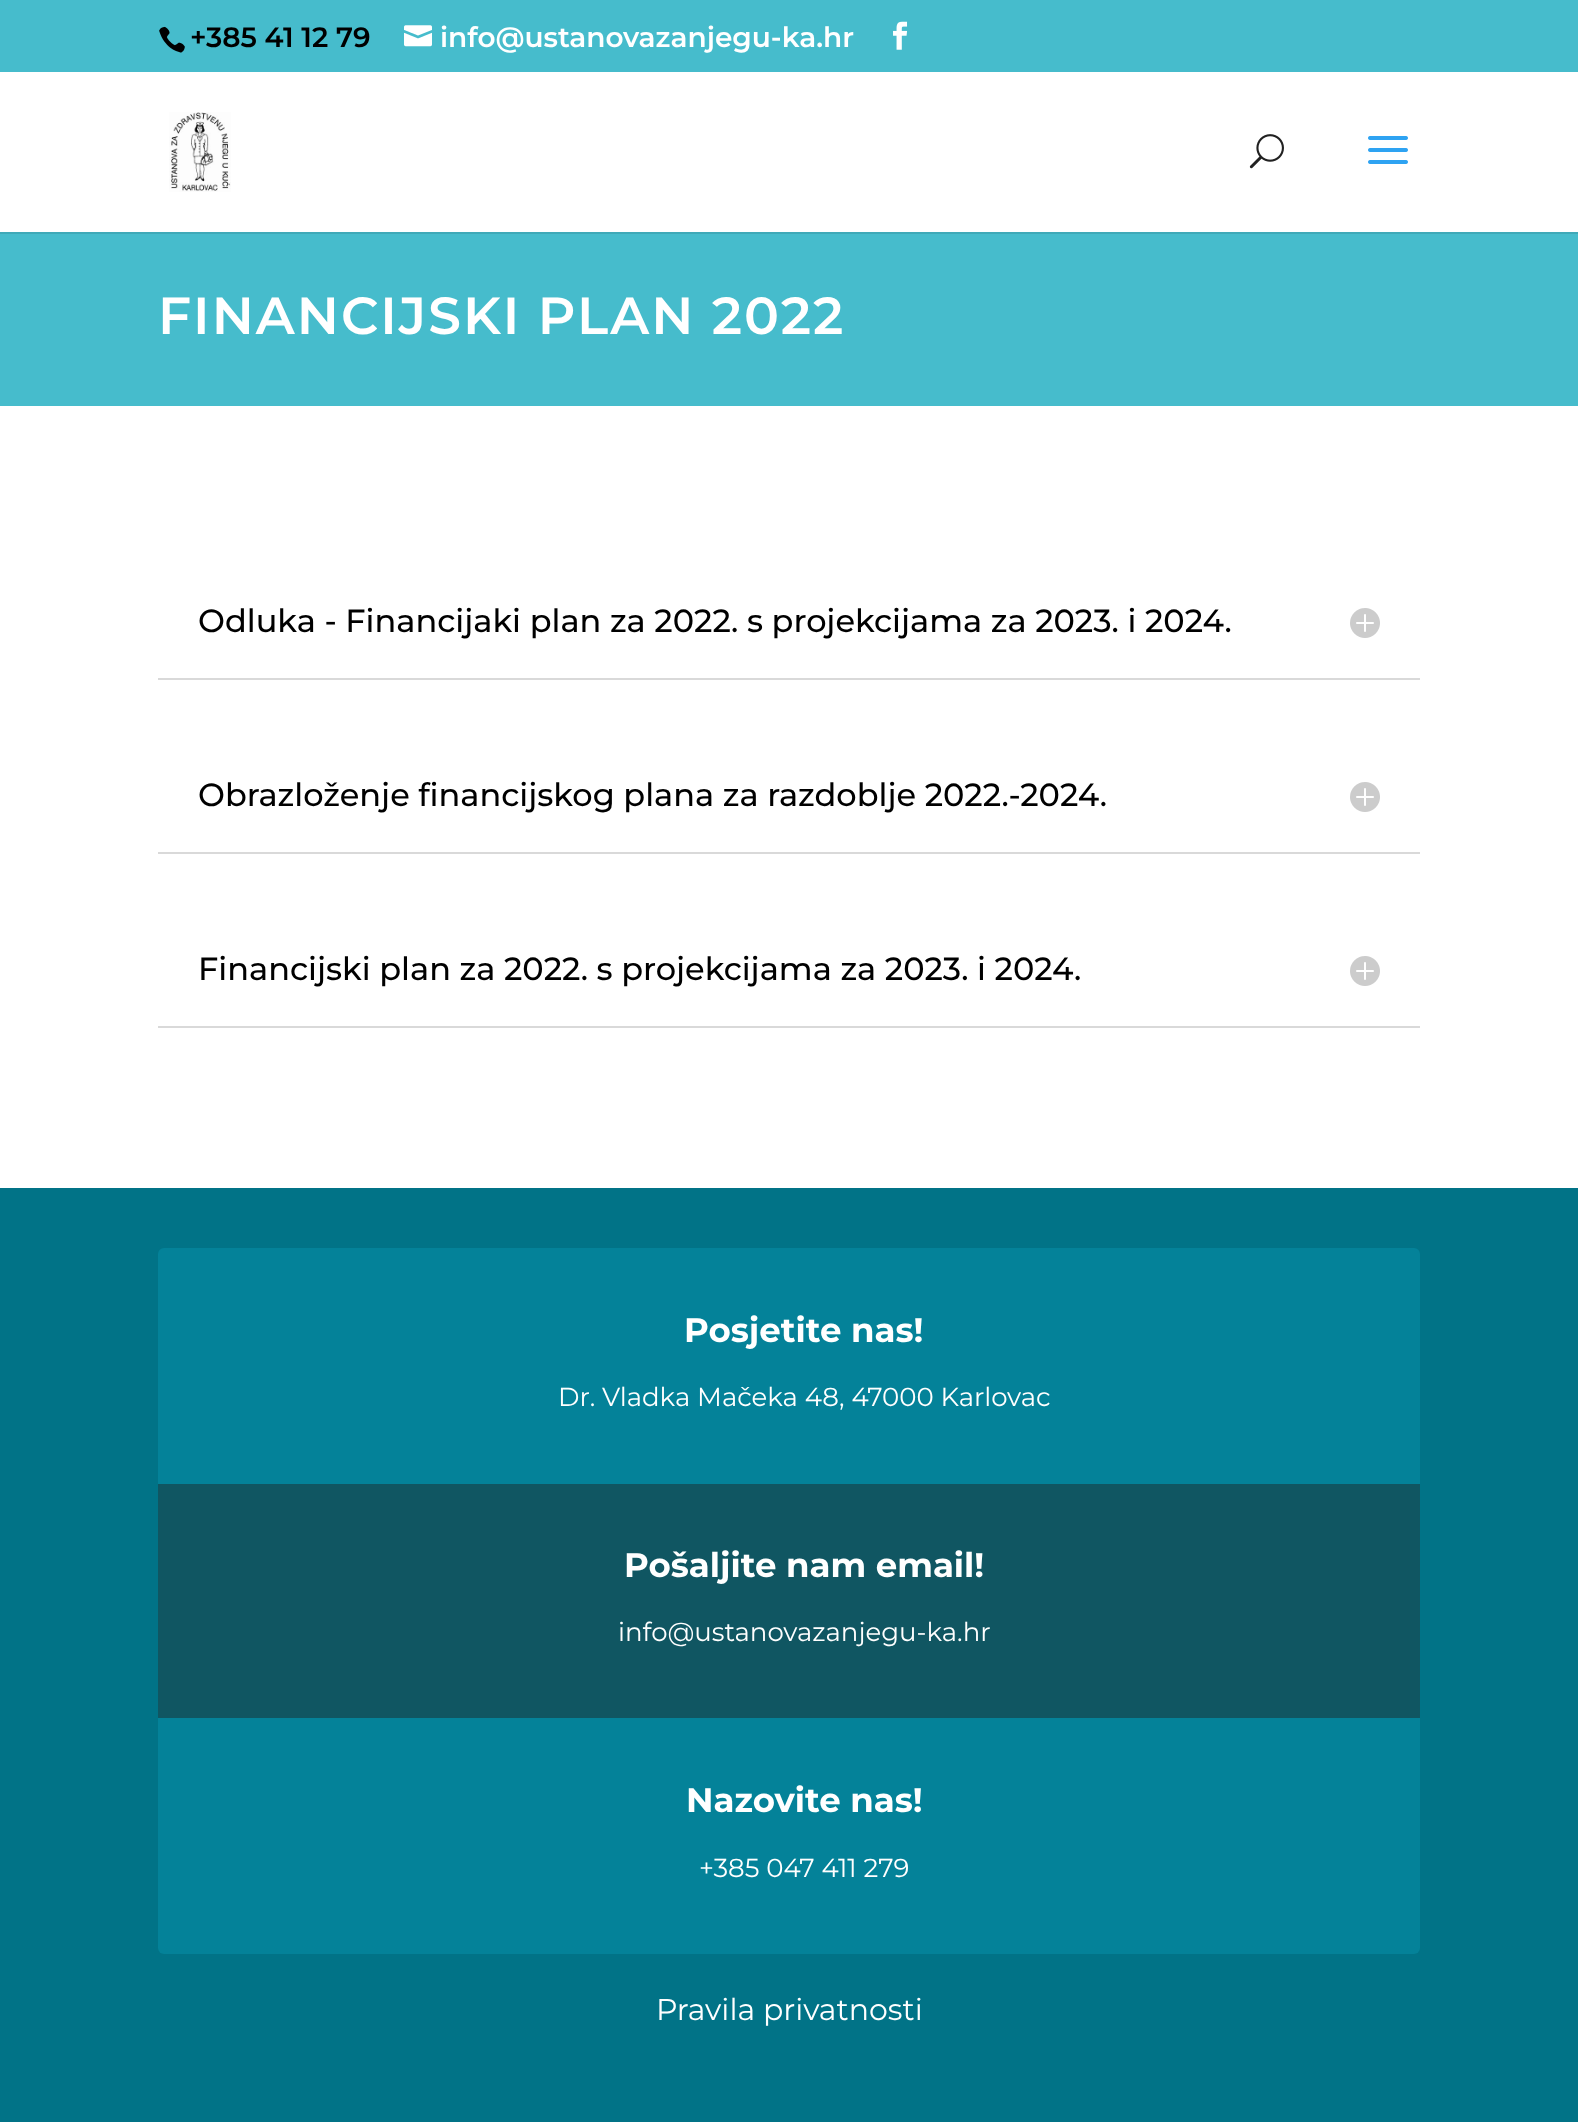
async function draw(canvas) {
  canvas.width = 1578;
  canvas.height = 2122;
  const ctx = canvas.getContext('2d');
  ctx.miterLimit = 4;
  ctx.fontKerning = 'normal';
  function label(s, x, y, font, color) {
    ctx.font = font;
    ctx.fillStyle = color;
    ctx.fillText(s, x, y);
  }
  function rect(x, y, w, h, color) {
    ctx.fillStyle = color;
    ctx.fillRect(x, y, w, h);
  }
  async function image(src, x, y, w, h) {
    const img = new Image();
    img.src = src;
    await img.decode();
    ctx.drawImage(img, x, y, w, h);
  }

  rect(0, 0, 1578, 2122, '#fff');
  rect(0, 0, 1578, 72, '#46bccc');
  await image('assets/img1.png', 159, 26, 26, 27);
  label('+385 41 12 79', 190, 47, '100 28px Montserrat', '#000');
  await image('assets/img2.png', 404, 25, 28, 22);
  label('info@ustanovazanjegu-ka.hr', 440, 47, '100 28px Montserrat', '#fff');
  await image('assets/img3.png', 893, 21, 15, 29);
  rect(0, 232, 1578, 2, '#3fa9b8');
  await image('assets/img4.png', 169, 112, 62, 80);
  await image('assets/img5.png', 1249, 134, 35, 35);
  await image('assets/img6.png', 1368, 136, 40, 28);
  rect(0, 234, 1578, 172, '#46bccc');
  ctx.letterSpacing = '2px';
  label('FINANCIJSKI PLAN 2022', 158, 334, '100 52px Montserrat', '#fff');
  rect(158, 678, 1262, 2, '#d9d9d9');
  ctx.letterSpacing = '0px';
  label('Odluka - Financijaki plan za 2022. s projekcijama za 2023. i 2024.', 198, 632, '100 32px "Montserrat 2"', '#000');
  await image('assets/img7.png', 1350, 608, 30, 30);
  rect(158, 852, 1262, 2, '#d9d9d9');
  label('Obrazloženje financijskog plana za razdoblje 2022.-2024.', 198, 806, '100 32px "Montserrat 2"', '#000');
  await image('assets/img7.png', 1350, 782, 30, 30);
  rect(158, 1026, 1262, 2, '#d9d9d9');
  label('Financijski plan za 2022. s projekcijama za 2023. i 2024.', 198, 980, '100 32px "Montserrat 2"', '#000');
  await image('assets/img7.png', 1350, 956, 30, 30);
  rect(0, 1188, 1578, 934, '#017387');
  ctx.fillStyle = '#048299';
  ctx.beginPath();
  ctx.roundRect(158, 1248, 1262, 236, [6, 6, 0, 0]);
  ctx.fill();
  label('Posjetite nas!', 684, 1342, '100 34px "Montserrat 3"', '#fff');
  label('Dr. Vladka Mačeka 48, 47000 Karlovac', 558, 1406, '100 26px "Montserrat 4"', '#fff');
  rect(158, 1484, 1262, 234, '#105662');
  label('Pošaljite nam email!', 624, 1577, '100 34px "Montserrat 3"', '#fff');
  label('info@ustanovazanjegu-ka.hr', 618, 1641, '100 26px "Montserrat 4"', '#fff');
  ctx.fillStyle = '#048299';
  ctx.beginPath();
  ctx.roundRect(158, 1718, 1262, 236, [0, 0, 6, 6]);
  ctx.fill();
  label('Nazovite nas!', 686, 1812, '100 34px "Montserrat 3"', '#fff');
  label('+385 047 411 279', 699, 1877, '100 26px "Montserrat 4"', '#fff');
  label('Pravila privatnosti', 656, 2020, '100 30px "Montserrat 4"', '#fff');
}

draw(document.querySelector('canvas'));
